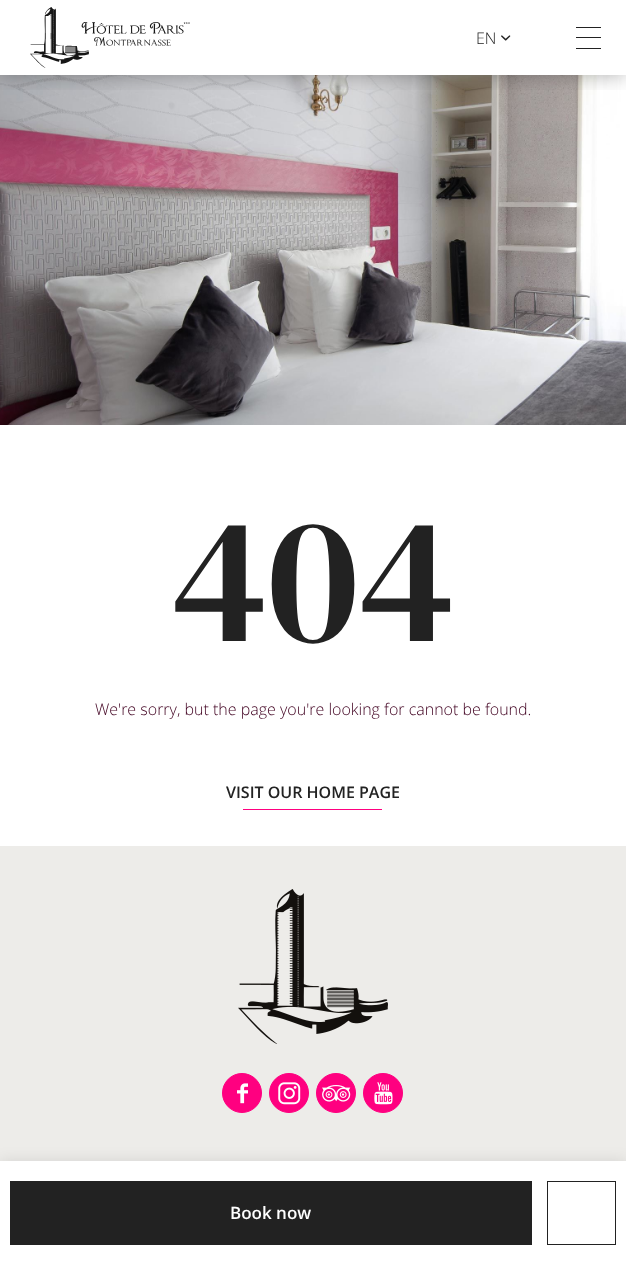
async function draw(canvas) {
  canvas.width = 626;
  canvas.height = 1265;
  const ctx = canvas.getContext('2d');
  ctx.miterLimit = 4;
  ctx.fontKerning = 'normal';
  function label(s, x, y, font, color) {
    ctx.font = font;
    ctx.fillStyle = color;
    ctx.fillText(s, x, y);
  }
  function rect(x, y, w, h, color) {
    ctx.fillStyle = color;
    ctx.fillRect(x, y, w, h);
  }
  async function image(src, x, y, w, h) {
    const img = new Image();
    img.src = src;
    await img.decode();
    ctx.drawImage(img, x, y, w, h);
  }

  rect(0, 0, 626, 1265, '#fff');
  await image('assets/img3.png', 0, 75, 626, 350);
  ctx.save();
  ctx.beginPath();
  ctx.rect(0, 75, 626, 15);
  ctx.clip();
  ctx.fillStyle = '#0000004d';
  ctx.filter = 'blur(10px)';
  ctx.beginPath();
  ctx.rect(0, 0, 626, 75);
  ctx.fill();
  ctx.filter = 'none';
  ctx.restore();
  await image('assets/img1.png', 30, 7, 160, 61);
  label('EN', 476, 44, '300 16px Open Sans', '#222');
  await image('assets/img2.png', 501, 35, 10, 6);
  rect(576, 27, 25, 1, '#222');
  rect(576, 37, 25, 1, '#222');
  rect(576, 48, 25, 1, '#222');
  label('404', 171, 641, '180px DM Serif Display', '#222');
  label('We\'re sorry, but the page you\'re looking for cannot be found.', 95, 715, '300 16px Open Sans', '#400020');
  label('VISIT OUR HOME PAGE', 226, 798, '600 16px Open Sans', '#222');
  rect(243, 809, 139, 1, '#ff0080');
  rect(0, 846, 626, 315, '#edece9');
  await image('assets/img4.png', 238, 889, 150, 155);
  ctx.fillStyle = '#ff0080';
  ctx.beginPath();
  ctx.arc(242, 1093, 19.5, 0, 2 * Math.PI);
  ctx.fill();
  ctx.strokeStyle = '#ff0080';
  ctx.stroke();
  await image('assets/img5.png', 237, 1083, 11, 21);
  ctx.beginPath();
  ctx.arc(289, 1093, 19.5, 0, 2 * Math.PI);
  ctx.fill();
  ctx.stroke();
  await image('assets/img6.png', 278, 1082, 23, 23);
  ctx.beginPath();
  ctx.arc(336, 1093, 19.5, 0, 2 * Math.PI);
  ctx.fill();
  ctx.stroke();
  await image('assets/img7.png', 322, 1085, 29, 17);
  ctx.beginPath();
  ctx.arc(383, 1093, 19.5, 0, 2 * Math.PI);
  ctx.fill();
  ctx.stroke();
  await image('assets/img8.png', 374, 1082, 19, 23);
  ctx.fillStyle = '#0e0e0e1a';
  ctx.filter = 'blur(7.5px)';
  ctx.beginPath();
  ctx.rect(0, 1161, 626, 104);
  ctx.fill();
  ctx.filter = 'none';
  rect(0, 1161, 626, 104, '#fff');
  rect(10, 1181, 522, 64, '#222');
  label('Book now', 230, 1219, '600 17px Open Sans', '#fff');
  ctx.strokeStyle = '#222';
  ctx.strokeRect(547.5, 1181.5, 68, 63);
}

draw(document.querySelector('canvas'));
